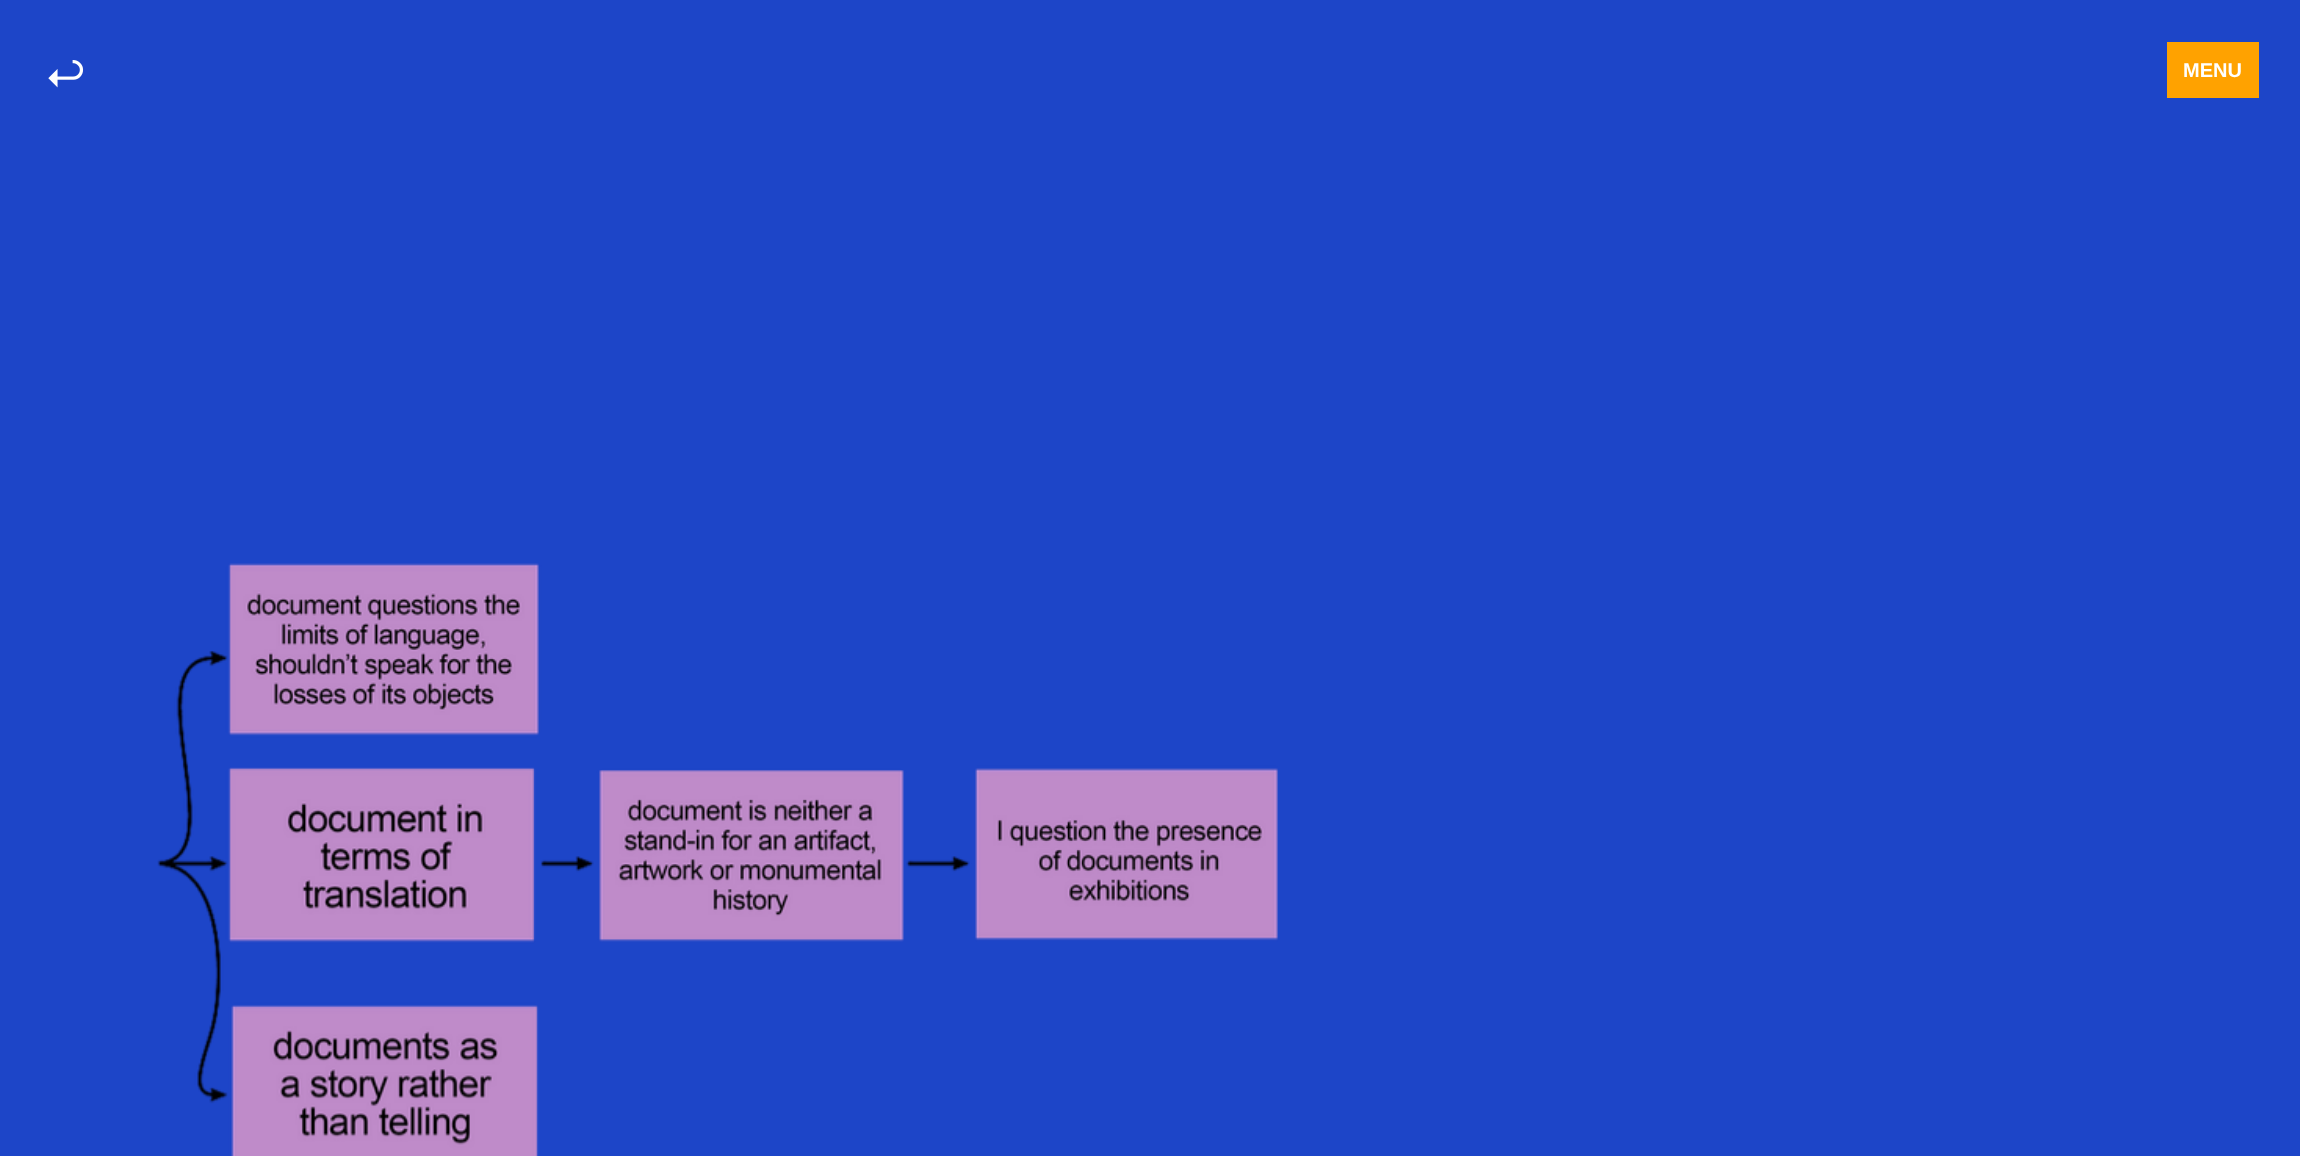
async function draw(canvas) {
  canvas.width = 2300;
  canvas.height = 1156;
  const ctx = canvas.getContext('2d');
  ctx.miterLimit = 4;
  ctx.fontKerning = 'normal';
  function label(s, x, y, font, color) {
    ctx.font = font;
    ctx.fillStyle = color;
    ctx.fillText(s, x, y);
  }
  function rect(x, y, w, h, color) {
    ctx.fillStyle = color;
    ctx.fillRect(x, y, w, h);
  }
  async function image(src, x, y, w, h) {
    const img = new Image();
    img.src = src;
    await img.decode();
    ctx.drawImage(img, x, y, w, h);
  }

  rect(0, 0, 2300, 1156, '#1d45c8');
  await image('assets/img1.png', 48, 60, 36, 28);
  rect(2167, 42, 92, 56, '#ffa200');
  label('MENU', 2183, 77, 'bold 20px Liberation Sans', '#fff');
  await image('assets/img2.png', 157, 563, 1121, 593);
}

draw(document.querySelector('canvas'));
